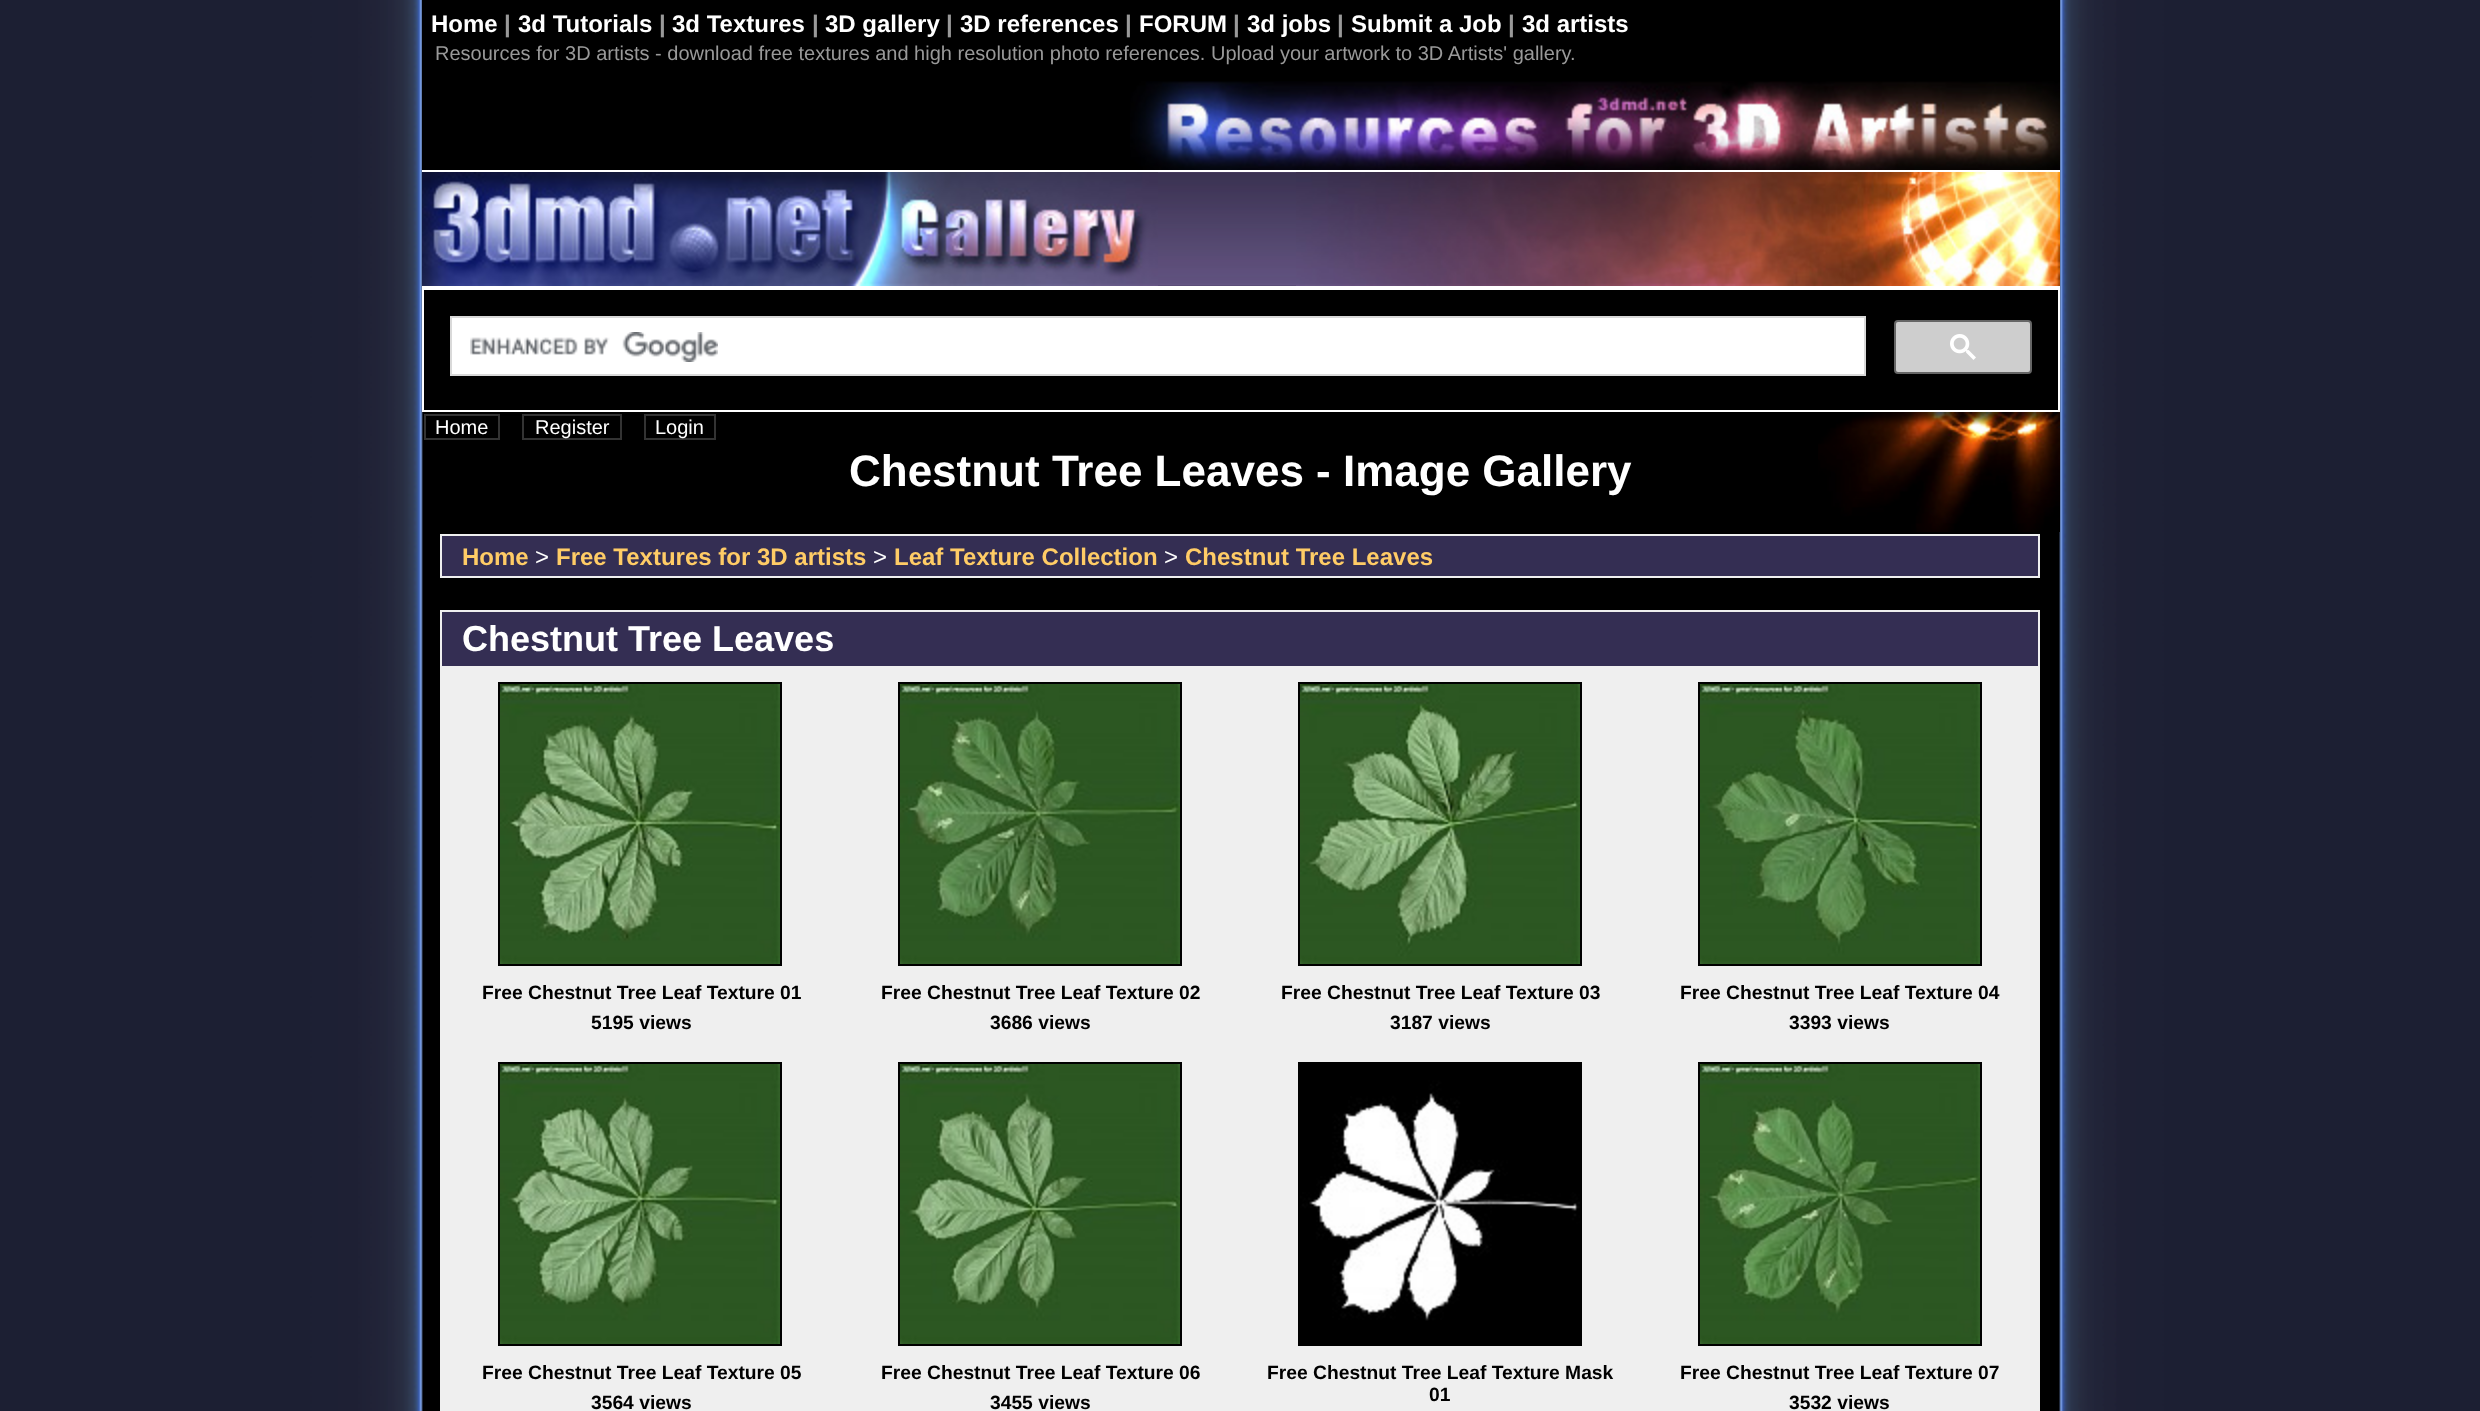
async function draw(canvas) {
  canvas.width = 2480;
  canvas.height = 1411;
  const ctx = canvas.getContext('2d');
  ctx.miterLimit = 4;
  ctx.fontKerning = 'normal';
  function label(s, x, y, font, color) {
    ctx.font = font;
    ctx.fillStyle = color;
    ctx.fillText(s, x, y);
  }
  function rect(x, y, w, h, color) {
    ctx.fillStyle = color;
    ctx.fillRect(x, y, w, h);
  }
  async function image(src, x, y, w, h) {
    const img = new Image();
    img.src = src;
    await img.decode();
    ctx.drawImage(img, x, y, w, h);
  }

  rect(0, 0, 2480, 1411, '#1c1f33');
  await image('assets/img1.png', 216, 0, 2048, 1411);
  rect(422, 0, 1638, 170, '#000');
  await image('assets/img2.png', 1130, 81, 930, 89);
  label('Home', 431, 32, 'bold 24px Liberation Sans', '#fff');
  label('|', 504, 32, 'bold 24px Liberation Sans', '#999');
  label('3d Tutorials', 518, 32, 'bold 24px Liberation Sans', '#fff');
  label('|', 659, 32, 'bold 24px Liberation Sans', '#999');
  label('3d Textures', 672, 32, 'bold 24px Liberation Sans', '#fff');
  label('|', 812, 32, 'bold 24px Liberation Sans', '#999');
  label('3D gallery', 825, 32, 'bold 24px Liberation Sans', '#fff');
  label('|', 946, 32, 'bold 24px Liberation Sans', '#999');
  label('3D references', 960, 32, 'bold 24px Liberation Sans', '#fff');
  label('|', 1125, 32, 'bold 24px Liberation Sans', '#999');
  label('FORUM', 1139, 32, 'bold 24px Liberation Sans', '#fff');
  label('|', 1233, 32, 'bold 24px Liberation Sans', '#999');
  label('3d jobs', 1247, 32, 'bold 24px Liberation Sans', '#fff');
  label('|', 1337, 32, 'bold 24px Liberation Sans', '#999');
  label('Submit a Job', 1351, 32, 'bold 24px Liberation Sans', '#fff');
  label('|', 1508, 32, 'bold 24px Liberation Sans', '#999');
  label('3d artists', 1522, 32, 'bold 24px Liberation Sans', '#fff');
  label('Resources for 3D artists - download free textures and high resolution photo references. Upload your artwork to 3D Artists\' gallery.', 435, 60, '20px Liberation Sans', '#999');
  await image('assets/img3.png', 1158, 172, 138, 114);
  rect(422, 170, 1638, 2, '#fff');
  rect(422, 286, 1638, 2, '#fff');
  await image('assets/img4.png', 422, 172, 736, 114);
  await image('assets/img5.png', 1296, 172, 764, 114);
  ctx.strokeStyle = '#fff';
  ctx.lineWidth = 2;
  ctx.strokeRect(423, 289, 1636, 122);
  ctx.beginPath();
  ctx.rect(451, 317, 1414, 58);
  ctx.fill();
  ctx.strokeStyle = '#d9d9d9';
  ctx.stroke();
  await image('assets/img6.png', 470, 332, 248, 30);
  ctx.fillStyle = '#cecece';
  ctx.beginPath();
  ctx.roundRect(1895, 321, 136, 52, 3);
  ctx.fill();
  ctx.strokeStyle = '#666';
  ctx.stroke();
  await image('assets/img7.png', 1950, 334, 26, 26);
  await image('assets/img8.png', 1818, 412, 242, 120);
  ctx.strokeStyle = '#333';
  ctx.strokeRect(425, 415, 74, 24);
  label('Home', 435, 434, '20px Liberation Sans', '#fff');
  ctx.strokeRect(523, 415, 98, 24);
  label('Register', 535, 434, '20px Liberation Sans', '#fff');
  ctx.strokeRect(645, 415, 70, 24);
  label('Login', 655, 434, '20px Liberation Sans', '#fff');
  label('Chestnut Tree Leaves - Image Gallery', 849, 486, 'bold 44px Liberation Sans', '#fff');
  rect(440, 534, 1600, 44, '#efefef');
  rect(442, 536, 1596, 40, '#342e53');
  label('Home', 462, 565, 'bold 24px Liberation Sans', '#fc6');
  label('>', 535, 565, '24px Liberation Sans', '#fff');
  label('Free Textures for 3D artists', 556, 565, 'bold 24px Liberation Sans', '#fc6');
  label('>', 873, 565, '24px Liberation Sans', '#fff');
  label('Leaf Texture Collection', 894, 565, 'bold 24px Liberation Sans', '#fc6');
  label('>', 1164, 565, '24px Liberation Sans', '#fff');
  label('Chestnut Tree Leaves', 1185, 565, 'bold 24px Liberation Sans', '#fc6');
  rect(440, 610, 1600, 801, '#efefef');
  rect(442, 612, 1596, 54, '#342e53');
  label('Chestnut Tree Leaves', 462, 651, 'bold 36px Liberation Sans', '#fff');
  ctx.strokeStyle = '#000';
  ctx.strokeRect(499, 683, 282, 282);
  await image('assets/img9.png', 500, 684, 280, 280);
  label('Free Chestnut Tree Leaf Texture 01', 482, 999, 'bold 19.25px Liberation Sans', '#000');
  label('5195 views', 591, 1029, 'bold 19.25px Liberation Sans', '#000');
  ctx.strokeRect(899, 683, 282, 282);
  await image('assets/img10.png', 900, 684, 280, 280);
  label('Free Chestnut Tree Leaf Texture 02', 881, 999, 'bold 19.25px Liberation Sans', '#000');
  label('3686 views', 990, 1029, 'bold 19.25px Liberation Sans', '#000');
  ctx.strokeRect(1299, 683, 282, 282);
  await image('assets/img11.png', 1300, 684, 280, 280);
  label('Free Chestnut Tree Leaf Texture 03', 1281, 999, 'bold 19.25px Liberation Sans', '#000');
  label('3187 views', 1390, 1029, 'bold 19.25px Liberation Sans', '#000');
  ctx.strokeRect(1699, 683, 282, 282);
  await image('assets/img12.png', 1700, 684, 280, 280);
  label('Free Chestnut Tree Leaf Texture 04', 1680, 999, 'bold 19.25px Liberation Sans', '#000');
  label('3393 views', 1789, 1029, 'bold 19.25px Liberation Sans', '#000');
  ctx.strokeRect(499, 1063, 282, 282);
  await image('assets/img13.png', 500, 1064, 280, 280);
  label('Free Chestnut Tree Leaf Texture 05', 482, 1379, 'bold 19.25px Liberation Sans', '#000');
  label('3564 views', 591, 1409, 'bold 19.25px Liberation Sans', '#000');
  ctx.strokeRect(899, 1063, 282, 282);
  await image('assets/img14.png', 900, 1064, 280, 280);
  label('Free Chestnut Tree Leaf Texture 06', 881, 1379, 'bold 19.25px Liberation Sans', '#000');
  label('3455 views', 990, 1409, 'bold 19.25px Liberation Sans', '#000');
  ctx.strokeRect(1299, 1063, 282, 282);
  await image('assets/img15.png', 1300, 1064, 280, 280);
  label('Free Chestnut Tree Leaf Texture Mask', 1267, 1379, 'bold 19.25px Liberation Sans', '#000');
  label('01', 1429, 1401, 'bold 19.25px Liberation Sans', '#000');
  ctx.strokeRect(1699, 1063, 282, 282);
  await image('assets/img16.png', 1700, 1064, 280, 280);
  label('Free Chestnut Tree Leaf Texture 07', 1680, 1379, 'bold 19.25px Liberation Sans', '#000');
  label('3532 views', 1789, 1409, 'bold 19.25px Liberation Sans', '#000');
}

draw(document.querySelector('canvas'));
